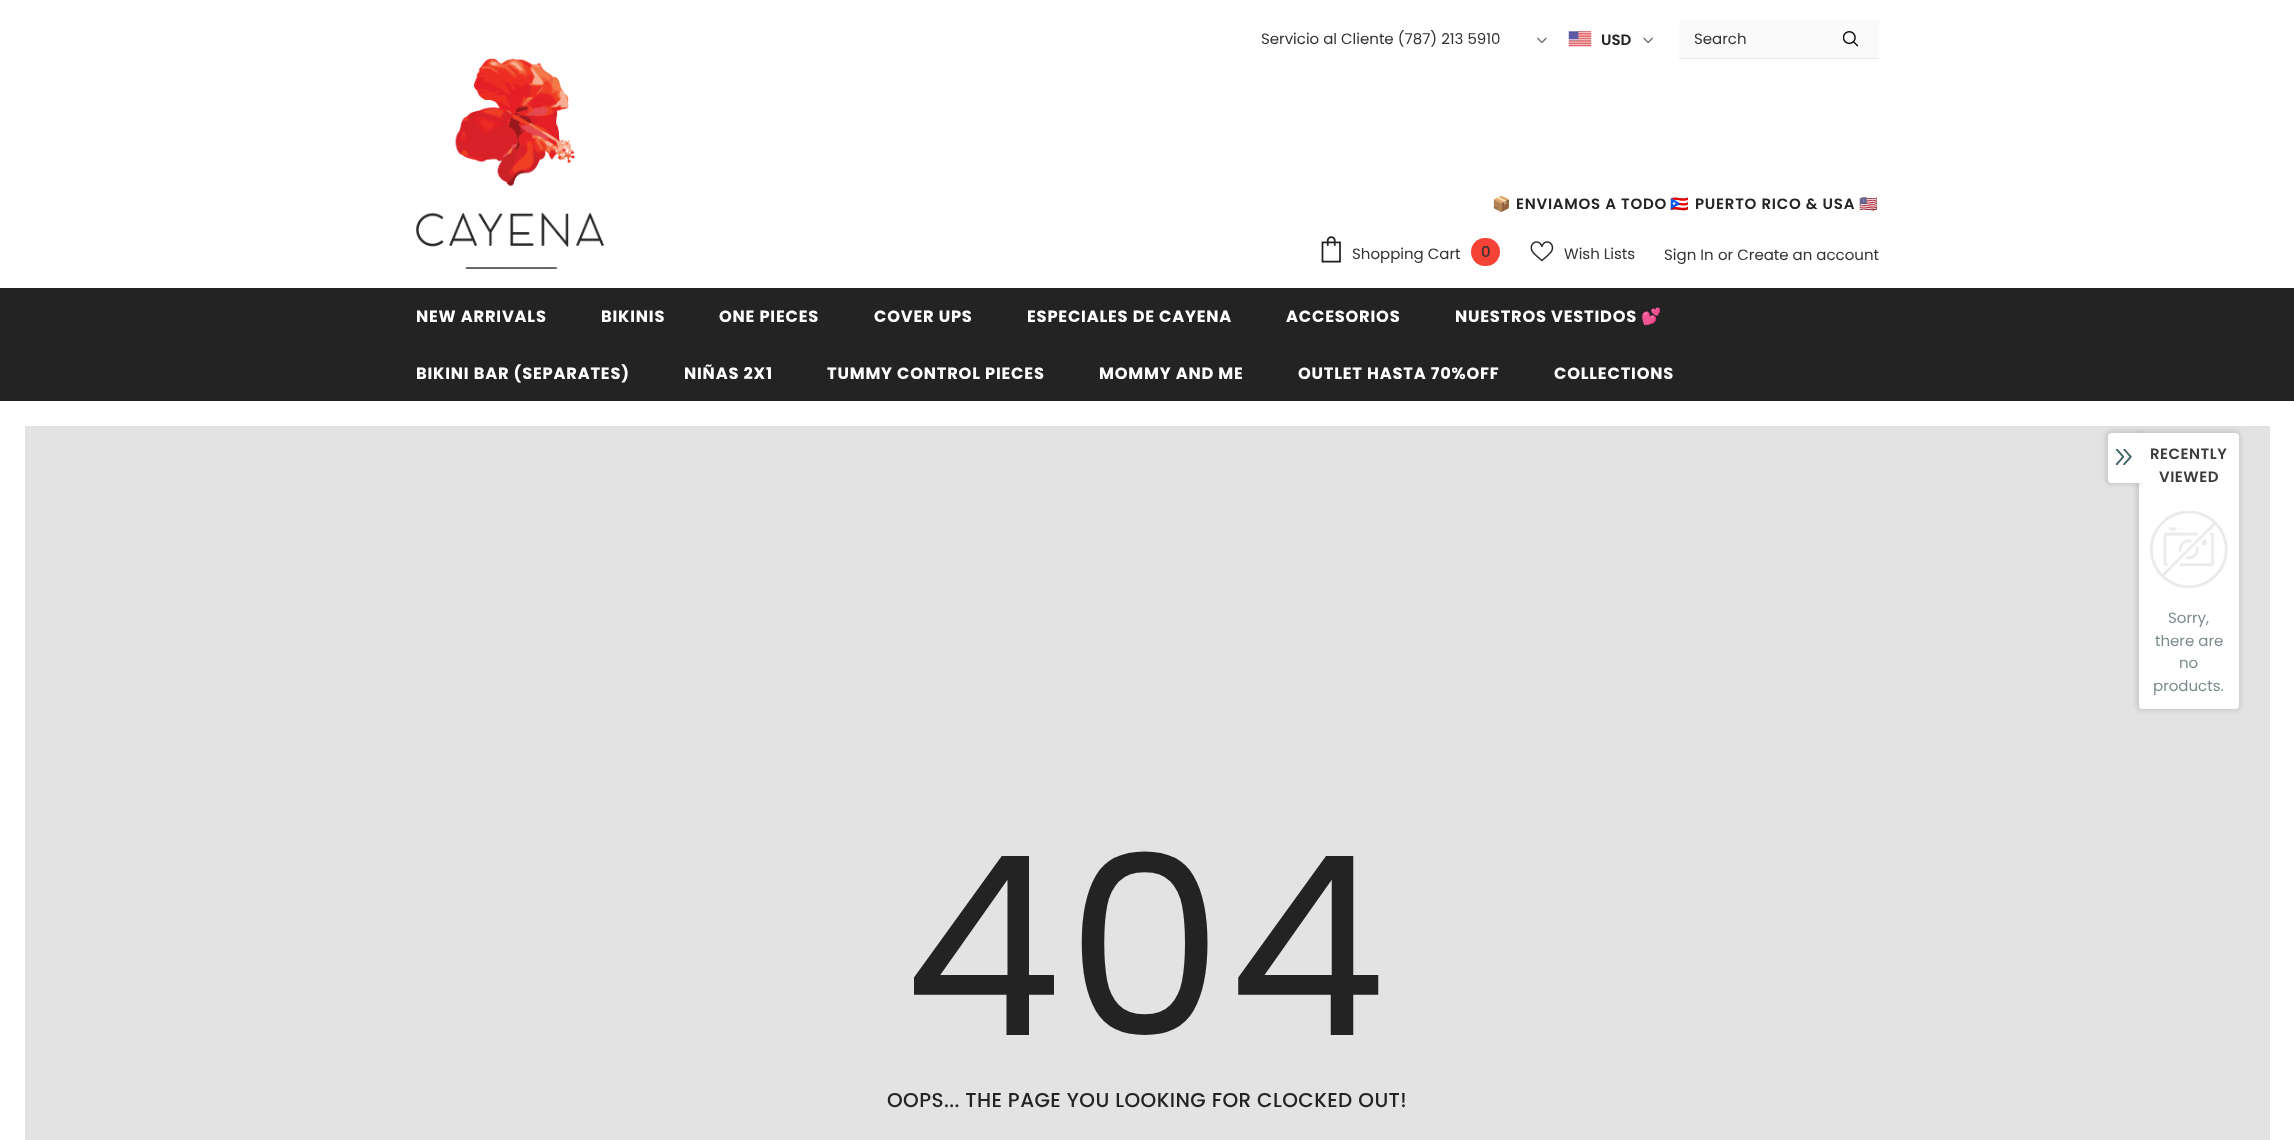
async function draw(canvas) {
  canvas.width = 2294;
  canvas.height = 1140;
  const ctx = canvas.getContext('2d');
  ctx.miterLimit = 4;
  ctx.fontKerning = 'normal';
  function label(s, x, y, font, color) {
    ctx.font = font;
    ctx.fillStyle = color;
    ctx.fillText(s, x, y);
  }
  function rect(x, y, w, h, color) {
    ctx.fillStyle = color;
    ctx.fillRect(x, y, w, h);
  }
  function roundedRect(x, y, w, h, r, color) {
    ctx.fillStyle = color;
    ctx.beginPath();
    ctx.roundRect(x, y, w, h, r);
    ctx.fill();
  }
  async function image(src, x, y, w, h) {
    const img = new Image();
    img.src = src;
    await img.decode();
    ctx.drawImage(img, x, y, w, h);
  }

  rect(0, 0, 2294, 1140, '#fff');
  label('Servicio al Cliente (787) 213 5910', 1261, 44, '15px Poppins', '#323232');
  await image('assets/img1.png', 1537, 37, 10, 7);
  await image('assets/img2.png', 1568, 31, 24, 16);
  label('USD', 1601, 45, '600 15px Poppins', '#232323');
  await image('assets/img3.png', 1643, 37, 10, 7);
  rect(1679, 20, 200, 38, '#fafafa');
  rect(1679, 58, 200, 1, '#e7e7e7');
  label('Search', 1694, 44, '15px Poppins', '#323232');
  await image('assets/img4.png', 1843, 31, 16, 16);
  await image('assets/img5.png', 416, 58, 188, 211);
  ctx.letterSpacing = '0.75px';
  label('📦', 1492, 209, 'bold 15px Noto Color Emoji', '#232323');
  label('ENVIAMOS A TODO', 1516, 209, '600 15px Poppins', '#232323');
  label('🇵🇷', 1670, 209, 'bold 15px Noto Color Emoji', '#232323');
  label('PUERTO RICO & USA', 1695, 209, '600 15px Poppins', '#232323');
  label('🇺🇸', 1859, 209, 'bold 15px Noto Color Emoji', '#232323');
  await image('assets/img6.png', 1321, 236, 20, 27);
  ctx.letterSpacing = '0px';
  label('Shopping Cart', 1352, 259, '15px Poppins', '#323232');
  roundedRect(1471, 238, 29, 28, 14, '#f44336');
  label('0', 1481, 257, '500 15px Poppins', '#323232');
  await image('assets/img7.png', 1530, 241, 24, 21);
  label('Wish Lists', 1564, 259, '15px Poppins', '#323232');
  label('Sign In', 1664, 260, '15px Poppins', '#323232');
  label('or Create an account', 1718, 260, '15px Poppins', '#323232');
  rect(0, 288, 2294, 113, '#232323');
  ctx.letterSpacing = '0.8px';
  label('NEW ARRIVALS', 416, 322, 'bold 16.25px Poppins', '#fff');
  label('BIKINIS', 601, 322, 'bold 16.25px Poppins', '#fff');
  label('ONE PIECES', 719, 322, 'bold 16.25px Poppins', '#fff');
  label('COVER UPS', 874, 322, 'bold 16.25px Poppins', '#fff');
  label('ESPECIALES DE CAYENA', 1027, 322, 'bold 16.25px Poppins', '#fff');
  label('ACCESORIOS', 1286, 322, 'bold 16.25px Poppins', '#fff');
  label('NUESTROS VESTIDOS', 1455, 322, 'bold 16.25px Poppins', '#fff');
  label('💕', 1641, 322, 'bold 16.25px Noto Color Emoji', '#fff');
  label('BIKINI BAR (SEPARATES)', 416, 379, 'bold 16.25px Poppins', '#fff');
  label('NIÑAS 2X1', 684, 379, 'bold 16.25px Poppins', '#fff');
  label('TUMMY CONTROL PIECES', 827, 379, 'bold 16.25px Poppins', '#fff');
  label('MOMMY AND ME', 1099, 379, 'bold 16.25px Poppins', '#fff');
  label('OUTLET HASTA 70%OFF', 1298, 379, 'bold 16.25px Poppins', '#fff');
  label('COLLECTIONS', 1554, 379, 'bold 16.25px Poppins', '#fff');
  rect(25, 426, 2245, 714, '#e3e3e3');
  ctx.fillStyle = '#0000001a';
  ctx.filter = 'blur(2px)';
  ctx.beginPath();
  ctx.roundRect(2136, 430, 105, 281, 6);
  ctx.fill();
  ctx.filter = 'none';
  ctx.fillStyle = '#fff';
  ctx.beginPath();
  ctx.roundRect(2139, 433, 100, 276, [0, 4, 4, 4]);
  ctx.fill();
  ctx.fillStyle = '#0000001a';
  ctx.filter = 'blur(2px)';
  ctx.beginPath();
  ctx.roundRect(2105, 430, 38, 55, 6);
  ctx.fill();
  ctx.filter = 'none';
  ctx.fillStyle = '#fff';
  ctx.beginPath();
  ctx.roundRect(2108, 433, 32, 50, [4, 0, 0, 4]);
  ctx.fill();
  await image('assets/img8.png', 2115, 449, 17, 17);
  rect(2140, 433, 5, 50, '#fff');
  ctx.letterSpacing = '0.5px';
  label('RECENTLY', 2150, 459, '600 15px Poppins', '#3c3c3c');
  label('VIEWED', 2159, 482, '600 15px Poppins', '#3c3c3c');
  await image('assets/img9.png', 2150, 511, 78, 78);
  ctx.letterSpacing = '0px';
  label('Sorry,', 2168, 623, '15px Poppins', '#7d8b8e');
  label('there are', 2155, 646, '15px Poppins', '#7d8b8e');
  label('no', 2179, 668, '15px Poppins', '#7d8b8e');
  label('products.', 2153, 691, '15px Poppins', '#7d8b8e');
  ctx.letterSpacing = '5px';
  label('404', 904, 1035, '250px Poppins', '#232323');
  ctx.letterSpacing = '0.4px';
  label('OOPS... THE PAGE YOU LOOKING FOR CLOCKED OUT!', 887, 1107, '500 20px Poppins', '#232323');
}

draw(document.querySelector('canvas'));
